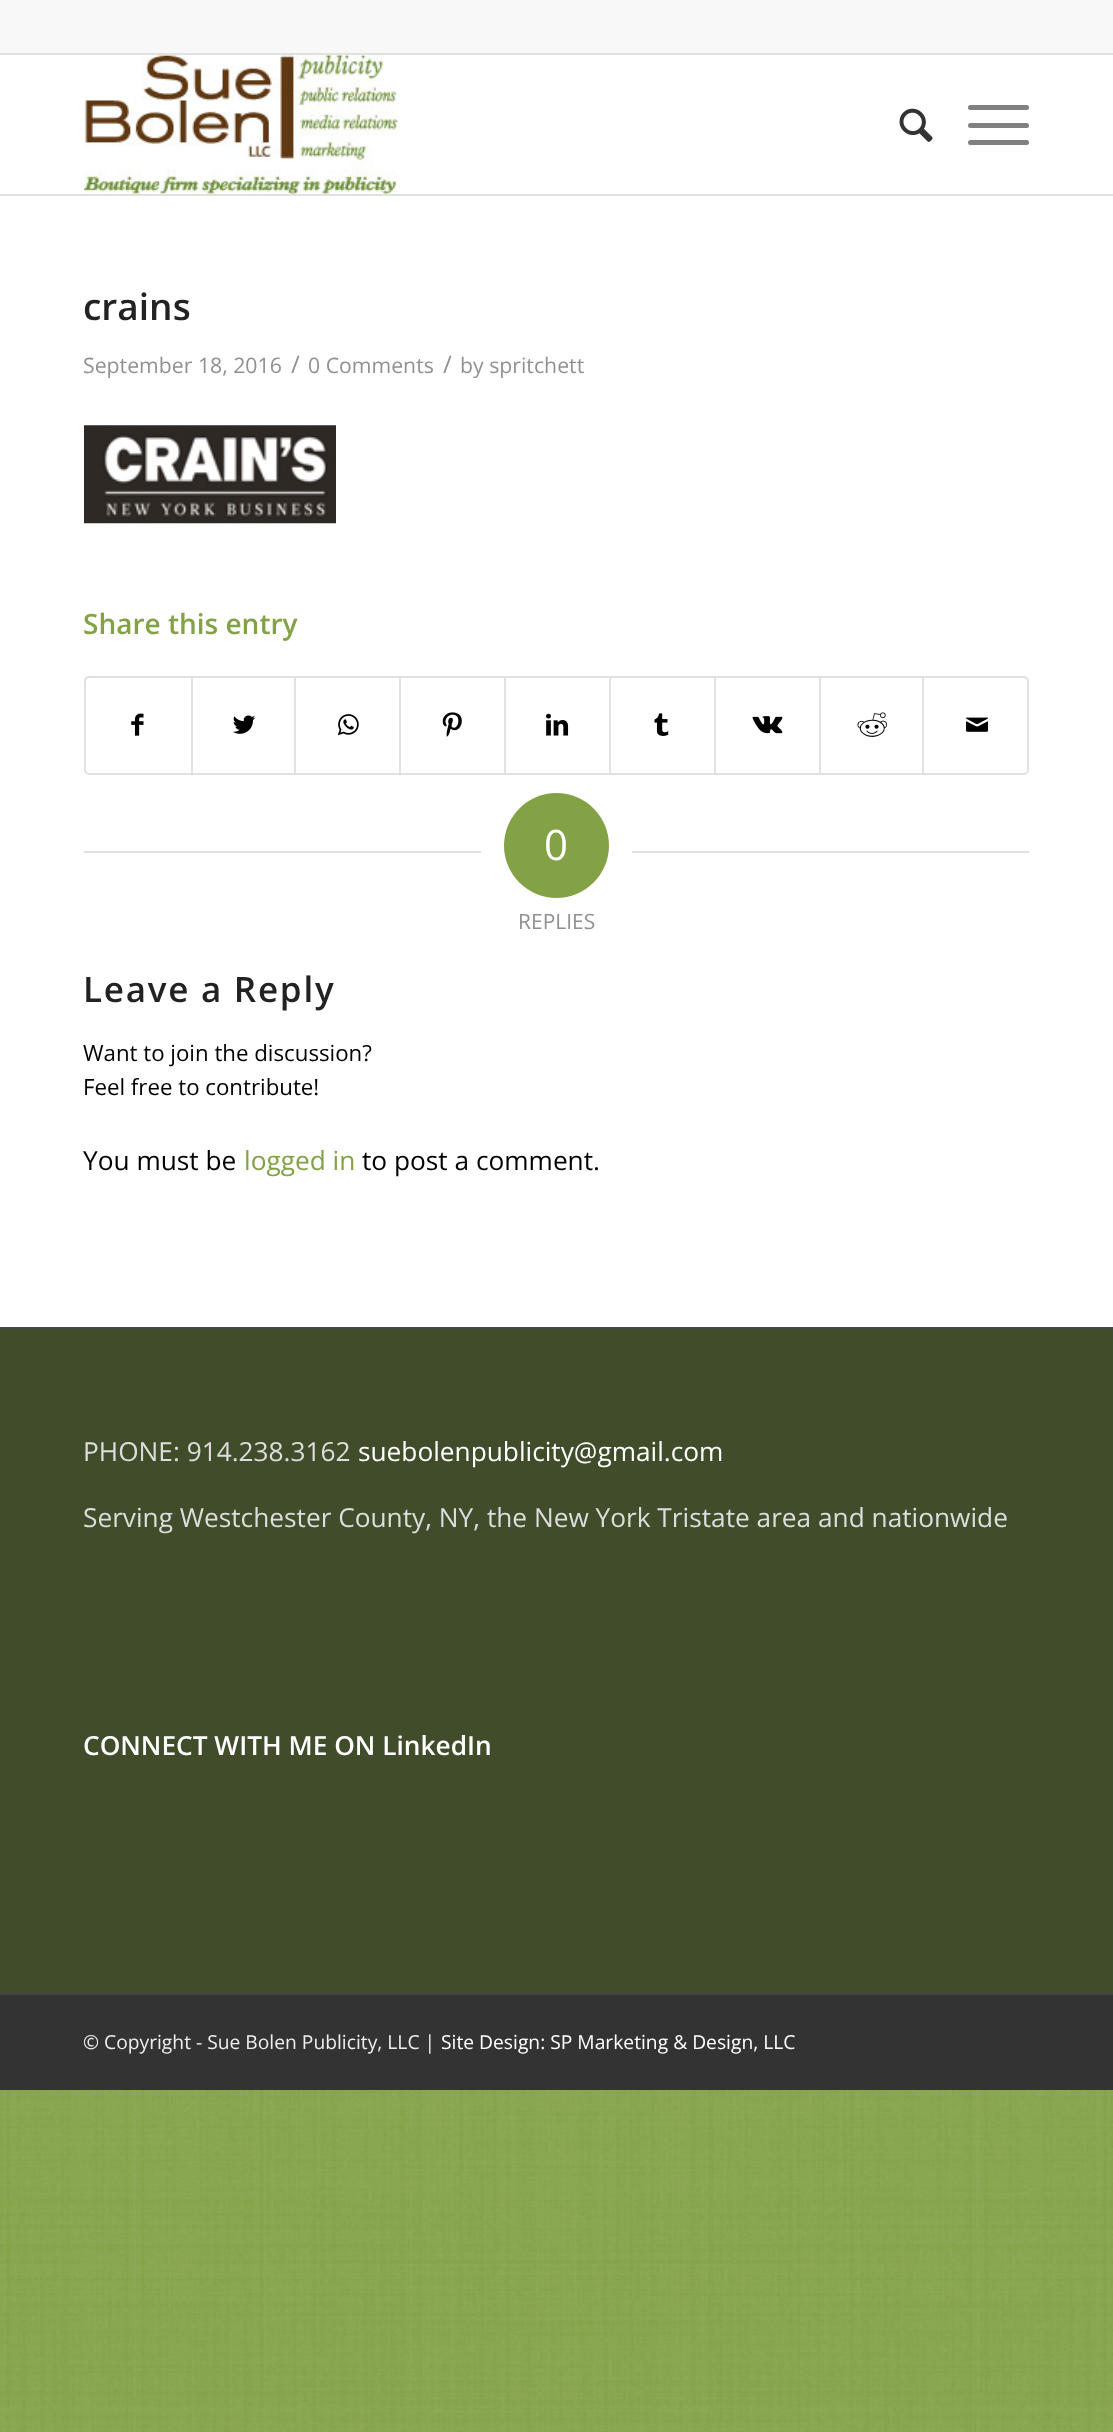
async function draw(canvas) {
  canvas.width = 1113;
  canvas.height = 2432;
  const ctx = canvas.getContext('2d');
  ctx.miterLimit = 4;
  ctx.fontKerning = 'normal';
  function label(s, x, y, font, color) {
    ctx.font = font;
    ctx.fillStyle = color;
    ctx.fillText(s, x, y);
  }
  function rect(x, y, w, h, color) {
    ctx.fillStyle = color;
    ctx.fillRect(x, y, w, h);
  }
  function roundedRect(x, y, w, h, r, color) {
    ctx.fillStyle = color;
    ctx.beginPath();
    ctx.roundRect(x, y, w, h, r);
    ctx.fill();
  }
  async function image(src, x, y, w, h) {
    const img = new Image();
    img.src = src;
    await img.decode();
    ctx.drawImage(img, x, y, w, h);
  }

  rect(0, 0, 1113, 2432, '#83a245');
  await image('assets/img1.png', 0, 2090, 1113, 342);
  rect(0, 0, 1113, 53, '#f8f8f8');
  rect(0, 53, 1113, 2, '#e1e1e1');
  rect(0, 55, 1113, 139, '#fff');
  rect(0, 194, 1113, 2, '#e1e1e1');
  await image('assets/img2.png', 84, 55, 314, 139);
  await image('assets/img3.png', 899, 108, 34, 34);
  roundedRect(968, 123, 61, 5, 2.5, '#808080');
  roundedRect(968, 105, 61, 5, 2.5, '#808080');
  roundedRect(968, 140, 61, 5, 2.5, '#808080');
  rect(0, 196, 1113, 1131, '#fff');
  label('crains', 83, 320, '600 37px Open Sans', '#222');
  label('September 18, 2016', 83, 373, '21.25px Open Sans', '#919191');
  label('/', 291, 373, '24px Open Sans', '#919191');
  label('0 Comments', 308, 373, '21.25px Open Sans', '#919191');
  label('/', 443, 373, '24px Open Sans', '#919191');
  label('by spritchett', 460, 373, '21.25px Open Sans', '#919191');
  await image('assets/img4.png', 84, 425, 252, 99);
  label('Share this entry', 83, 634, '600 28px Open Sans', '#83a245');
  ctx.beginPath();
  ctx.roundRect(85, 677, 943, 97, 4);
  ctx.strokeStyle = '#e1e1e1';
  ctx.lineWidth = 2;
  ctx.stroke();
  await image('assets/img5.png', 131, 713, 13, 23);
  rect(191, 677, 2, 97, '#e1e1e1');
  await image('assets/img6.png', 233, 715, 23, 19);
  rect(294, 677, 2, 97, '#e1e1e1');
  await image('assets/img7.png', 337, 714, 22, 22);
  rect(399, 677, 2, 97, '#e1e1e1');
  await image('assets/img8.png', 442, 712, 20, 25);
  rect(504, 677, 2, 97, '#e1e1e1');
  await image('assets/img9.png', 546, 713, 23, 23);
  rect(609, 677, 2, 97, '#e1e1e1');
  await image('assets/img10.png', 654, 713, 15, 23);
  rect(714, 677, 2, 97, '#e1e1e1');
  await image('assets/img11.png', 752, 716, 31, 18);
  rect(819, 677, 2, 97, '#e1e1e1');
  await image('assets/img12.png', 857, 712, 30, 25);
  rect(922, 677, 2, 97, '#e1e1e1');
  await image('assets/img13.png', 966, 717, 23, 15);
  rect(84, 851, 397, 2, '#e1e1e1');
  ctx.fillStyle = '#83a245';
  ctx.beginPath();
  ctx.arc(556.5, 845.5, 52.5, 0, 2 * Math.PI);
  ctx.fill();
  label('0', 544, 860, '42px Open Sans', '#fff');
  rect(632, 851, 397, 2, '#e1e1e1');
  label('REPLIES', 518, 929, '21px Open Sans', '#919191');
  ctx.letterSpacing = '1.75px';
  label('Leave a Reply', 83, 1002, '600 35px Open Sans', '#222');
  ctx.letterSpacing = '0px';
  label('Want to join the discussion?', 83, 1061, '22.25px Open Sans', '#000');
  label('Feel free to contribute!', 83, 1095, '22.25px Open Sans', '#000');
  label('You must be', 83, 1170, '26.25px Open Sans', '#000');
  label('logged in', 244, 1170, '26.25px Open Sans', '#83a245');
  label('to post a comment.', 362, 1170, '26.25px Open Sans', '#000');
  rect(0, 1329, 1113, 664, '#414d2a');
  rect(0, 1327, 1113, 2, '#444');
  label('PHONE: 914.238.3162', 83, 1461, '26.25px Open Sans', '#ddd');
  label('suebolenpublicity@gmail.com', 358, 1461, '26.25px Open Sans', '#fff');
  label('Serving Westchester County, NY, the New York Tristate area and nationwide', 83, 1527, '26.25px Open Sans', '#ddd');
  label('CONNECT WITH ME ON LinkedIn', 83, 1755, '600 26.25px Open Sans', '#fff');
  rect(0, 1995, 1113, 95, '#333');
  rect(0, 1993, 1113, 2, '#444');
  label('© Copyright - Sue Bolen Publicity, LLC |', 83, 2049, '19.25px Open Sans', '#eee');
  label('Site Design: SP Marketing & Design, LLC', 441, 2049, '19.25px Open Sans', '#fff');
}

draw(document.querySelector('canvas'));
